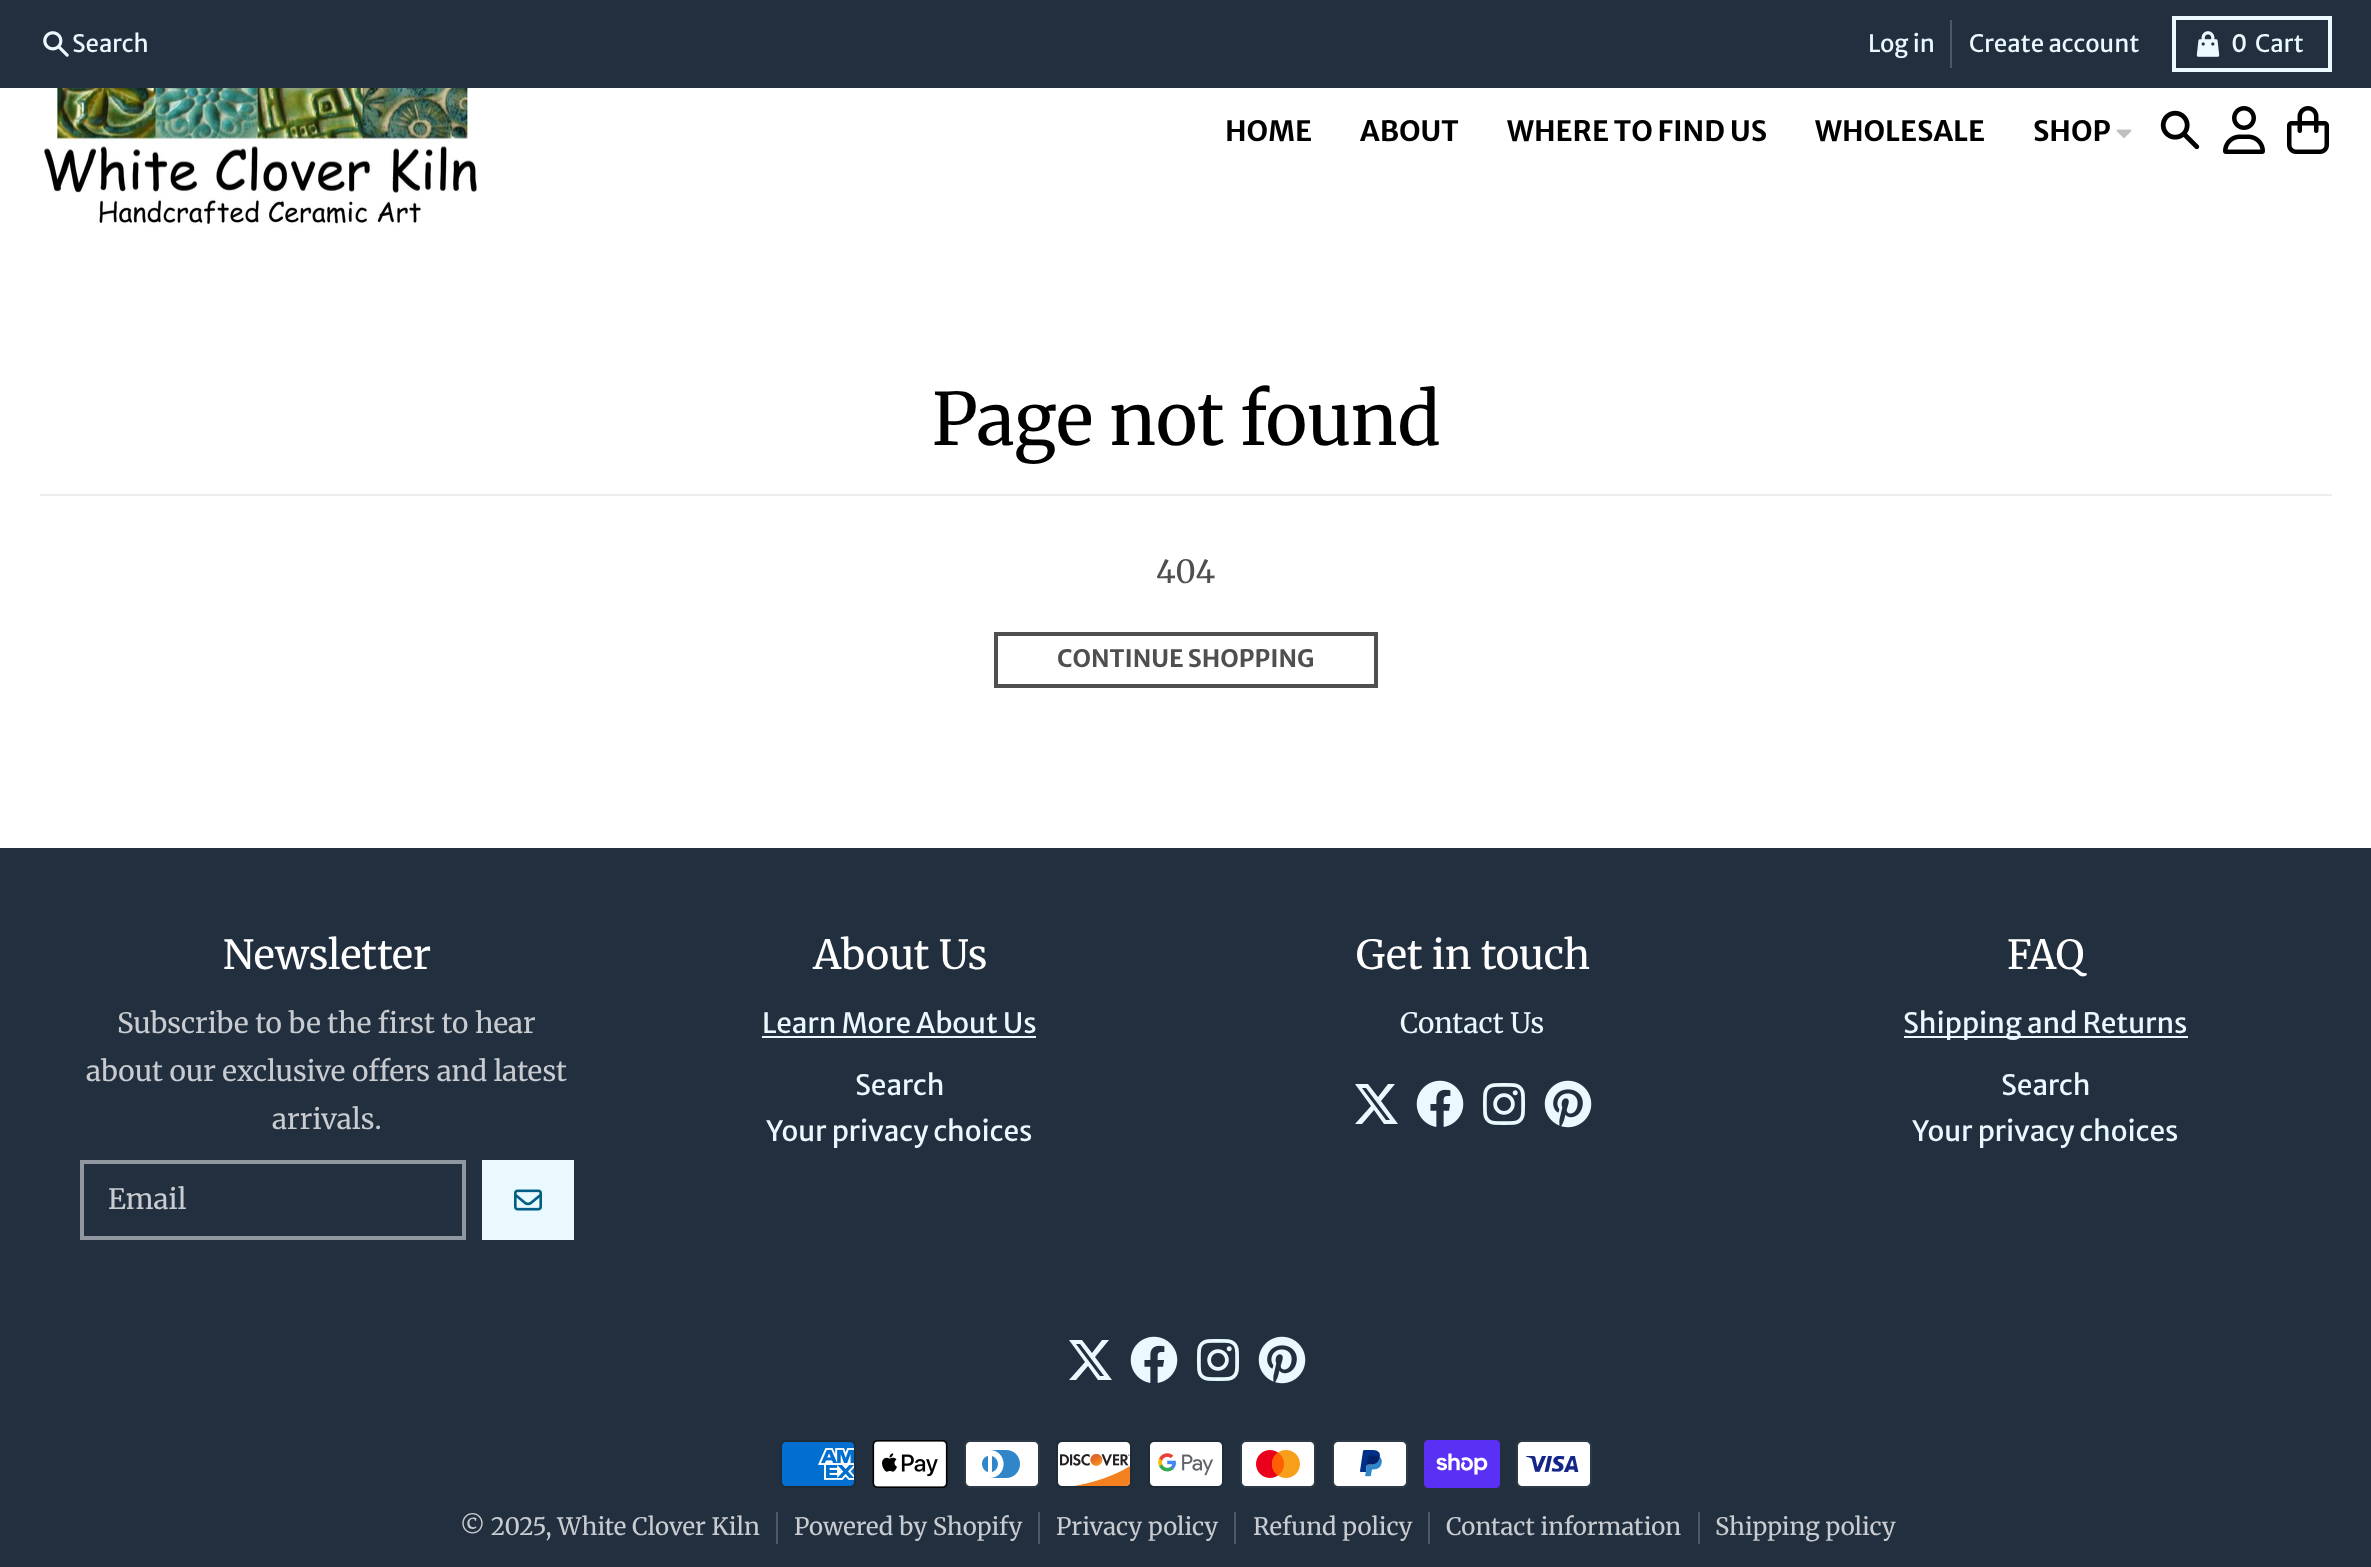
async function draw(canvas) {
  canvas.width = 2371;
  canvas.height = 1567;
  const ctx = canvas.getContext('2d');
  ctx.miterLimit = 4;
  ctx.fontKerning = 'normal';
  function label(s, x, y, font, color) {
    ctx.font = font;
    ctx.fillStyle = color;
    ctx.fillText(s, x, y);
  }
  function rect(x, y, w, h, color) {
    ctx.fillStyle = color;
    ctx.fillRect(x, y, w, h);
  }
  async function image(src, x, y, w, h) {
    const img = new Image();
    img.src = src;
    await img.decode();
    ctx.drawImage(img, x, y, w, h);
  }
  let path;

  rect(0, 0, 2371, 1567, '#222f3e');
  await image('assets/img1.png', 43, 31, 26, 26);
  label('Search', 72, 52, '24px Merriweather Sans', '#e9f9ff');
  label('Log in', 1868, 52, '24px Merriweather Sans', '#e9f9ff');
  rect(1950, 20, 2, 48, '#4a5765');
  label('Create account', 1969, 52, '24px Merriweather Sans', '#e9f9ff');
  ctx.strokeStyle = '#e9f9ff';
  ctx.lineWidth = 4;
  ctx.strokeRect(2174, 18, 156, 52);
  await image('assets/img2.png', 2196, 31, 24, 26);
  label('0', 2231, 52, '24px Merriweather Sans', '#e9f9ff');
  label('Cart', 2255, 52, '24px Merriweather Sans', '#e9f9ff');
  rect(0, 88, 2371, 760, '#fff');
  await image('assets/img3.png', 44, 88, 435, 137);
  label('HOME', 1225, 141, 'bold 28px Merriweather Sans', '#000');
  label('ABOUT', 1360, 141, 'bold 28px Merriweather Sans', '#000');
  label('WHERE TO FIND US', 1507, 141, 'bold 28px Merriweather Sans', '#000');
  label('WHOLESALE', 1815, 141, 'bold 28px Merriweather Sans', '#000');
  label('SHOP', 2033, 141, 'bold 28px Merriweather Sans', '#000');
  await image('assets/img4.png', 2116, 129, 16, 9);
  await image('assets/img5.png', 2160, 110, 40, 40);
  await image('assets/img6.png', 2223, 106, 42, 48);
  await image('assets/img7.png', 2287, 106, 42, 48);
  rect(40, 494, 2292, 2, '#ededed');
  label('Page not found', 932, 445, '72px Merriweather', '#000');
  label('404', 1156, 583, '32px "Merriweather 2"', '#4f4f4f');
  ctx.strokeStyle = '#4f4f4f';
  ctx.strokeRect(996, 634, 380, 52);
  label('CONTINUE SHOPPING', 1057, 667, 'bold 24px Merriweather Sans', '#4f4f4f');
  label('Newsletter', 223, 969, '40px "Merriweather 2"', '#fff');
  label('Subscribe to be the first to hear', 117, 1033, '28px "Merriweather 2"', '#c8cbcf');
  label('about our exclusive offers and latest', 86, 1081, '28px "Merriweather 2"', '#c8cbcf');
  label('arrivals.', 272, 1129, '28px "Merriweather 2"', '#c8cbcf');
  ctx.strokeStyle = '#91979f';
  ctx.strokeRect(82, 1162, 382, 76);
  label('Email', 108, 1209, '28px "Merriweather 2"', '#c8cbcf');
  rect(482, 1160, 92, 80, '#e9f9ff');
  await image('assets/img8.png', 514, 1189, 28, 22);
  label('About Us', 813, 969, '40px "Merriweather 2"', '#fff');
  label('Learn More About Us', 762, 1033, '28px Merriweather Sans', '#e9f9ff');
  rect(762, 1036, 274, 2, '#e9f9ff');
  label('Search', 855, 1095, '28px Merriweather Sans', '#e9f9ff');
  label('Your privacy choices', 766, 1141, '28px Merriweather Sans', '#e9f9ff');
  label('Get in touch', 1356, 969, '40px "Merriweather 2"', '#fff');
  label('Contact Us', 1400, 1033, '28px "Merriweather 2"', '#e9f9ff');
  path = new Path2D('M1388 1084H1395L1381 1101L1398 1124H1384L1374 1110L1362 1124H1355L1371 1106L1355 1084H1368L1378 1097ZM1386 1120H1390L1366 1088H1362Z');
  ctx.fill(path);
  await image('assets/img9.png', 1416, 1080, 48, 47);
  await image('assets/img10.png', 1483, 1083, 42, 42);
  await image('assets/img11.png', 1544, 1080, 48, 48);
  label('FAQ', 2007, 969, '40px "Merriweather 2"', '#fff');
  rect(1904, 1036, 284, 2, '#e9f9ff');
  label('Shipping and Returns', 1903, 1033, '28px Merriweather Sans', '#e9f9ff');
  label('Search', 2001, 1095, '28px Merriweather Sans', '#e9f9ff');
  label('Your privacy choices', 1912, 1141, '28px Merriweather Sans', '#e9f9ff');
  path = new Path2D('M1102 1340H1109L1095 1357L1112 1380H1098L1088 1366L1076 1380H1069L1085 1362L1069 1340H1082L1092 1353ZM1100 1376H1104L1080 1344H1076Z');
  ctx.fill(path);
  await image('assets/img9.png', 1130, 1336, 48, 47);
  await image('assets/img10.png', 1197, 1339, 42, 42);
  await image('assets/img11.png', 1258, 1336, 48, 48);
  await image('assets/img12.png', 780, 1440, 76, 48);
  await image('assets/img13.png', 872, 1440, 76, 48);
  await image('assets/img14.png', 964, 1440, 76, 48);
  await image('assets/img15.png', 1056, 1440, 76, 48);
  await image('assets/img16.png', 1148, 1440, 76, 48);
  await image('assets/img17.png', 1240, 1440, 76, 48);
  await image('assets/img18.png', 1332, 1440, 76, 48);
  await image('assets/img19.png', 1424, 1440, 76, 48);
  await image('assets/img20.png', 1516, 1440, 76, 48);
  label('© 2025, White Clover Kiln', 460, 1535, '24px "Merriweather 2"', '#c8cbcf');
  rect(776, 1512, 2, 32, '#4e5965');
  label('Powered by Shopify', 794, 1535, '24px "Merriweather 2"', '#c8cbcf');
  rect(1038, 1512, 2, 32, '#4e5965');
  label('Privacy policy', 1056, 1535, '24px "Merriweather 2"', '#c8cbcf');
  rect(1234, 1512, 2, 32, '#4e5965');
  label('Refund policy', 1253, 1535, '24px "Merriweather 2"', '#c8cbcf');
  rect(1428, 1512, 2, 32, '#4e5965');
  label('Contact information', 1446, 1535, '24px "Merriweather 2"', '#c8cbcf');
  rect(1698, 1512, 2, 32, '#4e5965');
  label('Shipping policy', 1715, 1535, '24px "Merriweather 2"', '#c8cbcf');
}

draw(document.querySelector('canvas'));
